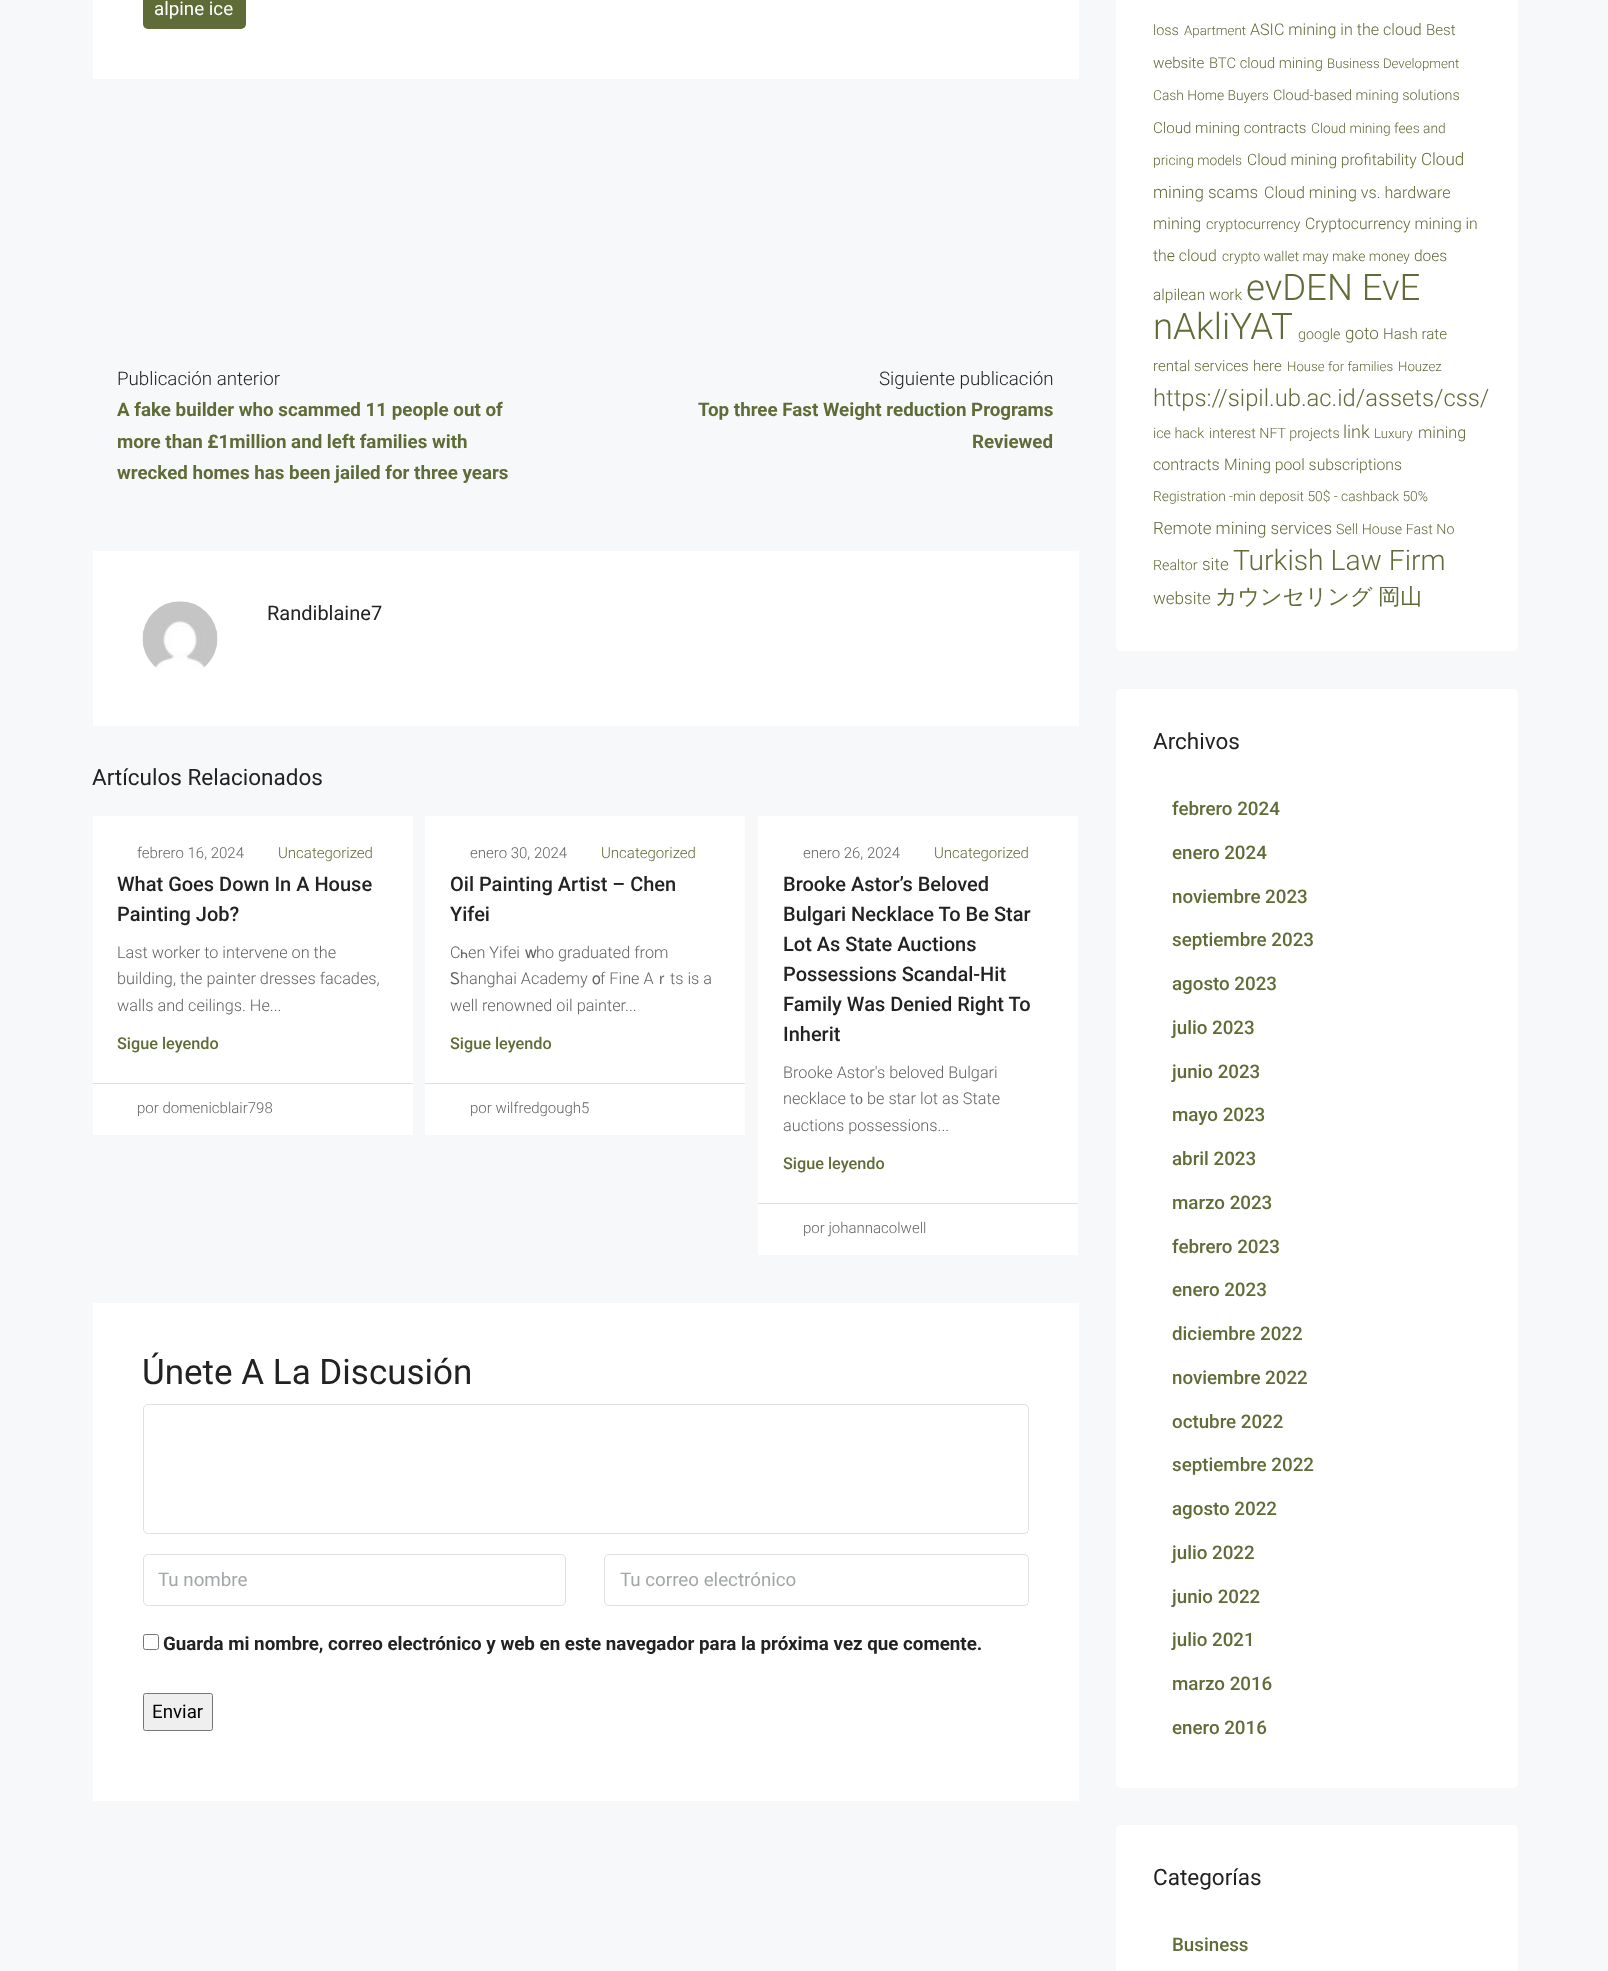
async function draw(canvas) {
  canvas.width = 1608;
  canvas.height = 1971;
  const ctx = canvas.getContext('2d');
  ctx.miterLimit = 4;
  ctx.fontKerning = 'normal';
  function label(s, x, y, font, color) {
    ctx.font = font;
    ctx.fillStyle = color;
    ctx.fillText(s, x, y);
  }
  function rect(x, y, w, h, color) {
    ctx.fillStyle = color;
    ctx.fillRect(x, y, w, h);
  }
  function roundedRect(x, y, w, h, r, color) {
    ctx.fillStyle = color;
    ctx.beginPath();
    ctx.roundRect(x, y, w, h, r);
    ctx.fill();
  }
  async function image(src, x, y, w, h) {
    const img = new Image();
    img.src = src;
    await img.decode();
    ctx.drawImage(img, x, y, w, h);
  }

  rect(0, 0, 1608, 1971, '#f7f8f9');
  rect(93, 0, 986, 79, '#fff');
  roundedRect(143, -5, 103, 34, 5, '#606c38');
  label('alpine ice', 154, 15, '18.75px Roboto', '#fff');
  label('Publicación anterior', 117, 385, '300 18.75px Roboto', '#222');
  label('A fake builder who scammed 11 people out of', 117, 416, 'bold 18.75px Roboto', '#606c38');
  label('more than £1million and left families with', 117, 448, 'bold 18.75px Roboto', '#606c38');
  label('wrecked homes has been jailed for three years', 117, 479, 'bold 18.75px Roboto', '#606c38');
  label('Siguiente publicación', 879, 385, '300 18.75px Roboto', '#222');
  label('Top three Fast Weight reduction Programs', 698, 416, 'bold 18.75px Roboto', '#606c38');
  label('Reviewed', 972, 448, 'bold 18.75px Roboto', '#606c38');
  rect(93, 551, 986, 175, '#fff');
  await image('assets/img1.png', 142, 601, 76, 67);
  label('Randiblaine7', 267, 620, '20px Roboto', '#222');
  label('Artículos Relacionados', 92, 785, '22.5px Roboto', '#222');
  rect(93, 816, 320, 319, '#fff');
  label('febrero 16, 2024', 137, 858, '300 15px Roboto', '#636363');
  label('Uncategorized', 278, 858, '300 15px Roboto', '#606c38');
  label('What Goes Down In A House', 117, 891, '500 20px Roboto', '#222');
  label('Painting Job?', 117, 921, '500 20px Roboto', '#222');
  label('Laѕt worker to intervene on the', 117, 958, '300 16.25px Roboto', '#636363');
  label('building, tһe painter dresses facades,', 117, 984, '300 16.25px Roboto', '#636363');
  label('walls and ceilings. He...', 117, 1011, '300 16.25px Roboto', '#636363');
  label('Sigue leyendo', 117, 1049, '500 16.25px Roboto', '#606c38');
  rect(93, 1083, 320, 1, '#dce0e0');
  label('por domenicblair798', 137, 1113, '300 15px Roboto', '#636363');
  rect(425, 816, 320, 319, '#fff');
  label('enero 30, 2024', 470, 858, '300 15px Roboto', '#636363');
  label('Uncategorized', 601, 858, '300 15px Roboto', '#606c38');
  label('Oil Painting Artist – Chen', 450, 891, '500 20px Roboto', '#222');
  label('Yifei', 450, 921, '500 20px Roboto', '#222');
  label('C', 450, 958, '300 16.25px Roboto', '#636363');
  label('һ', 460, 958, '16.25px FreeSans', '#636363');
  label('en Yifei', 468, 958, '300 16.25px Roboto', '#636363');
  label('ԝ', 525, 958, '16.25px FreeSans', '#636363');
  label('ho graduated from', 536, 958, '300 16.25px Roboto', '#636363');
  label('Ꮪ', 450, 984, '16.25px FreeSans', '#636363');
  label('hanghai Academy', 460, 984, '300 16.25px Roboto', '#636363');
  label('о', 592, 984, '16.25px FreeSans', '#636363');
  label('f Fine A', 600, 984, '300 16.25px Roboto', '#636363');
  label('ｒ', 654, 984, '500 16.25px WenQuanYi Zen Hei', '#636363');
  label('ts is a', 670, 984, '300 16.25px Roboto', '#636363');
  label('well renowned oil painter...', 450, 1011, '300 16.25px Roboto', '#636363');
  label('Sigue leyendo', 450, 1049, '500 16.25px Roboto', '#606c38');
  rect(425, 1083, 320, 1, '#dce0e0');
  label('por wilfredgough5', 470, 1113, '300 15px Roboto', '#636363');
  rect(758, 816, 320, 439, '#fff');
  label('enero 26, 2024', 803, 858, '300 15px Roboto', '#636363');
  label('Uncategorized', 934, 858, '300 15px Roboto', '#606c38');
  label('Brooke Astor’s Beloved', 783, 891, '500 20px Roboto', '#222');
  label('Bulgari Necklace To Be Star', 783, 921, '500 20px Roboto', '#222');
  label('Lot As State Auctions', 783, 951, '500 20px Roboto', '#222');
  label('Possessions Scandal-Hit', 783, 981, '500 20px Roboto', '#222');
  label('Family Was Denied Right To', 783, 1011, '500 20px Roboto', '#222');
  label('Inherit', 783, 1041, '500 20px Roboto', '#222');
  label('Brooke Astor\'s beloved Bulgari', 783, 1078, '300 16.25px Roboto', '#636363');
  label('necklace t', 783, 1104, '300 16.25px Roboto', '#636363');
  label('᧐', 855, 1104, '16.25px Dai Banna SIL', '#636363');
  label('be star lοt as Stаte', 867, 1104, '300 16.25px Roboto', '#636363');
  label('auctions possessions...', 783, 1131, '300 16.25px Roboto', '#636363');
  label('Sigue leyendo', 783, 1169, '500 16.25px Roboto', '#606c38');
  rect(758, 1203, 320, 1, '#dce0e0');
  label('por johannacolwell', 803, 1233, '300 15px Roboto', '#636363');
  rect(93, 1303, 986, 498, '#fff');
  label('Únete A La Discusión', 142, 1384, '35px Roboto', '#222');
  ctx.beginPath();
  ctx.roundRect(143.5, 1404.5, 885, 129, 4.5);
  ctx.strokeStyle = '#dce0e0';
  ctx.stroke();
  ctx.beginPath();
  ctx.roundRect(143.5, 1554.5, 422, 51, 4.5);
  ctx.stroke();
  label('Tu nombre', 158, 1586, '18.75px Roboto', '#a1a7a8');
  ctx.beginPath();
  ctx.roundRect(604.5, 1554.5, 424, 51, 4.5);
  ctx.stroke();
  label('Tu correo electrónico', 620, 1586, '18.75px Roboto', '#a1a7a8');
  ctx.beginPath();
  ctx.roundRect(143.5, 1634.5, 15, 15, 2);
  ctx.strokeStyle = '#767676';
  ctx.stroke();
  label('Guarda mi nombre, correo electrónico y web en este navegador para la próxima vez que comente.', 163, 1650, 'bold 18.75px Roboto', '#222');
  ctx.fillStyle = '#efefef';
  ctx.beginPath();
  ctx.roundRect(143.5, 1693.5, 69, 37, 2);
  ctx.fill();
  ctx.stroke();
  label('Enviar', 152, 1718, '18.75px Roboto', '#000');
  roundedRect(1116, -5, 402, 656, 5, '#fff');
  label('loss', 1153, 35, '300 14.4px Roboto', '#606c38');
  label('Apartment', 1184, 35, '300 13.25px Roboto', '#606c38');
  label('ASIC mining in the cloud', 1250, 35, '300 16.1px Roboto', '#606c38');
  label('Best', 1426, 35, '300 15.1px Roboto', '#606c38');
  label('website', 1153, 68, '300 15.1px Roboto', '#606c38');
  label('BTC cloud mining', 1209, 68, '300 14.75px Roboto', '#606c38');
  label('Business Development', 1327, 68, '300 13.25px Roboto', '#606c38');
  label('Cash Home Buyers', 1153, 100, '300 13.8px Roboto', '#606c38');
  label('Cloud-based mining solutions', 1273, 100, '300 14.4px Roboto', '#606c38');
  label('Cloud mining contracts', 1153, 133, '300 15.1px Roboto', '#606c38');
  label('Cloud mining fees and', 1311, 133, '300 13.8px Roboto', '#606c38');
  label('pricing models', 1153, 165, '300 13.8px Roboto', '#606c38');
  label('Cloud mining profitability', 1247, 165, '300 15.6px Roboto', '#606c38');
  label('Cloud', 1421, 165, '300 17px Roboto', '#606c38');
  label('mining scams', 1153, 198, '300 17px Roboto', '#606c38');
  label('Cloud mining vs. hardware', 1264, 198, '300 16.1px Roboto', '#606c38');
  label('mining', 1153, 229, '300 16.1px Roboto', '#606c38');
  label('cryptocurrency', 1206, 229, '300 14.4px Roboto', '#606c38');
  label('Cryptocurrency mining in', 1305, 229, '300 15.8px Roboto', '#606c38');
  label('the cloud', 1153, 261, '300 15.8px Roboto', '#606c38');
  label('crypto wallet may make money', 1222, 261, '300 13.8px Roboto', '#606c38');
  label('does', 1414, 261, '300 15.5px Roboto', '#606c38');
  label('alpilean work', 1153, 300, '300 15.5px Roboto', '#606c38');
  label('evDEN EvE', 1246, 300, '300 36.5px Roboto', '#606c38');
  label('nAkliYAT', 1153, 339, '300 36.5px Roboto', '#606c38');
  label('google', 1298, 339, '300 14.25px Roboto', '#606c38');
  label('goto', 1345, 339, '300 17px Roboto', '#606c38');
  label('Hash rate', 1383, 339, '300 15.1px Roboto', '#606c38');
  label('rental services', 1153, 371, '300 15.1px Roboto', '#606c38');
  label('here', 1253, 371, '300 15.1px Roboto', '#606c38');
  label('House for families', 1287, 371, '300 13.25px Roboto', '#606c38');
  label('Houzez', 1398, 371, '300 13.25px Roboto', '#606c38');
  label('https://sipil.ub.ac.id/assets/css/', 1153, 406, '300 23.75px Roboto', '#606c38');
  label('ice hack', 1153, 438, '300 14.25px Roboto', '#606c38');
  label('interest NFT projects', 1209, 438, '300 14.25px Roboto', '#606c38');
  label('link', 1343, 438, '300 18px Roboto', '#606c38');
  label('Luxury', 1374, 438, '300 13.25px Roboto', '#606c38');
  label('mining', 1418, 438, '300 16.1px Roboto', '#606c38');
  label('contracts', 1153, 470, '300 16.1px Roboto', '#606c38');
  label('Mining pool subscriptions', 1224, 470, '300 15.8px Roboto', '#606c38');
  label('Registration -min deposit 50$ - cashback 50%', 1153, 501, '300 13.8px Roboto', '#606c38');
  label('Remote mining services', 1153, 534, '300 17px Roboto', '#606c38');
  label('Sell House Fast No', 1336, 534, '300 14.25px Roboto', '#606c38');
  label('Realtor', 1153, 570, '300 14.25px Roboto', '#606c38');
  label('site', 1202, 570, '300 17px Roboto', '#606c38');
  label('Turkish Law Firm', 1233, 570, '300 28.25px Roboto', '#606c38');
  label('website', 1153, 604, '300 17px Roboto', '#606c38');
  ctx.wordSpacing = '-1px';
  label('カウンセリング 岡山', 1215, 604, '500 22px WenQuanYi Zen Hei', '#606c38');
  roundedRect(1116, 689, 402, 1099, 5, '#fff');
  ctx.wordSpacing = '0px';
  label('Archivos', 1153, 749, '22.5px Roboto', '#222');
  label('febrero 2024', 1172, 815, '500 18.75px Roboto', '#606c38');
  label('enero 2024', 1172, 859, '500 18.75px Roboto', '#606c38');
  label('noviembre 2023', 1172, 903, '500 18.75px Roboto', '#606c38');
  label('septiembre 2023', 1172, 946, '500 18.75px Roboto', '#606c38');
  label('agosto 2023', 1172, 990, '500 18.75px Roboto', '#606c38');
  label('julio 2023', 1172, 1034, '500 18.75px Roboto', '#606c38');
  label('junio 2023', 1172, 1078, '500 18.75px Roboto', '#606c38');
  label('mayo 2023', 1172, 1121, '500 18.75px Roboto', '#606c38');
  label('abril 2023', 1172, 1165, '500 18.75px Roboto', '#606c38');
  label('marzo 2023', 1172, 1209, '500 18.75px Roboto', '#606c38');
  label('febrero 2023', 1172, 1253, '500 18.75px Roboto', '#606c38');
  label('enero 2023', 1172, 1296, '500 18.75px Roboto', '#606c38');
  label('diciembre 2022', 1172, 1340, '500 18.75px Roboto', '#606c38');
  label('noviembre 2022', 1172, 1384, '500 18.75px Roboto', '#606c38');
  label('octubre 2022', 1172, 1428, '500 18.75px Roboto', '#606c38');
  label('septiembre 2022', 1172, 1471, '500 18.75px Roboto', '#606c38');
  label('agosto 2022', 1172, 1515, '500 18.75px Roboto', '#606c38');
  label('julio 2022', 1172, 1559, '500 18.75px Roboto', '#606c38');
  label('junio 2022', 1172, 1603, '500 18.75px Roboto', '#606c38');
  label('julio 2021', 1172, 1646, '500 18.75px Roboto', '#606c38');
  label('marzo 2016', 1172, 1690, '500 18.75px Roboto', '#606c38');
  label('enero 2016', 1172, 1734, '500 18.75px Roboto', '#606c38');
  roundedRect(1116, 1825, 402, 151, 5, '#fff');
  label('Categorías', 1153, 1885, '22.5px Roboto', '#222');
  label('Business', 1172, 1951, '500 18.75px Roboto', '#606c38');
}

draw(document.querySelector('canvas'));
